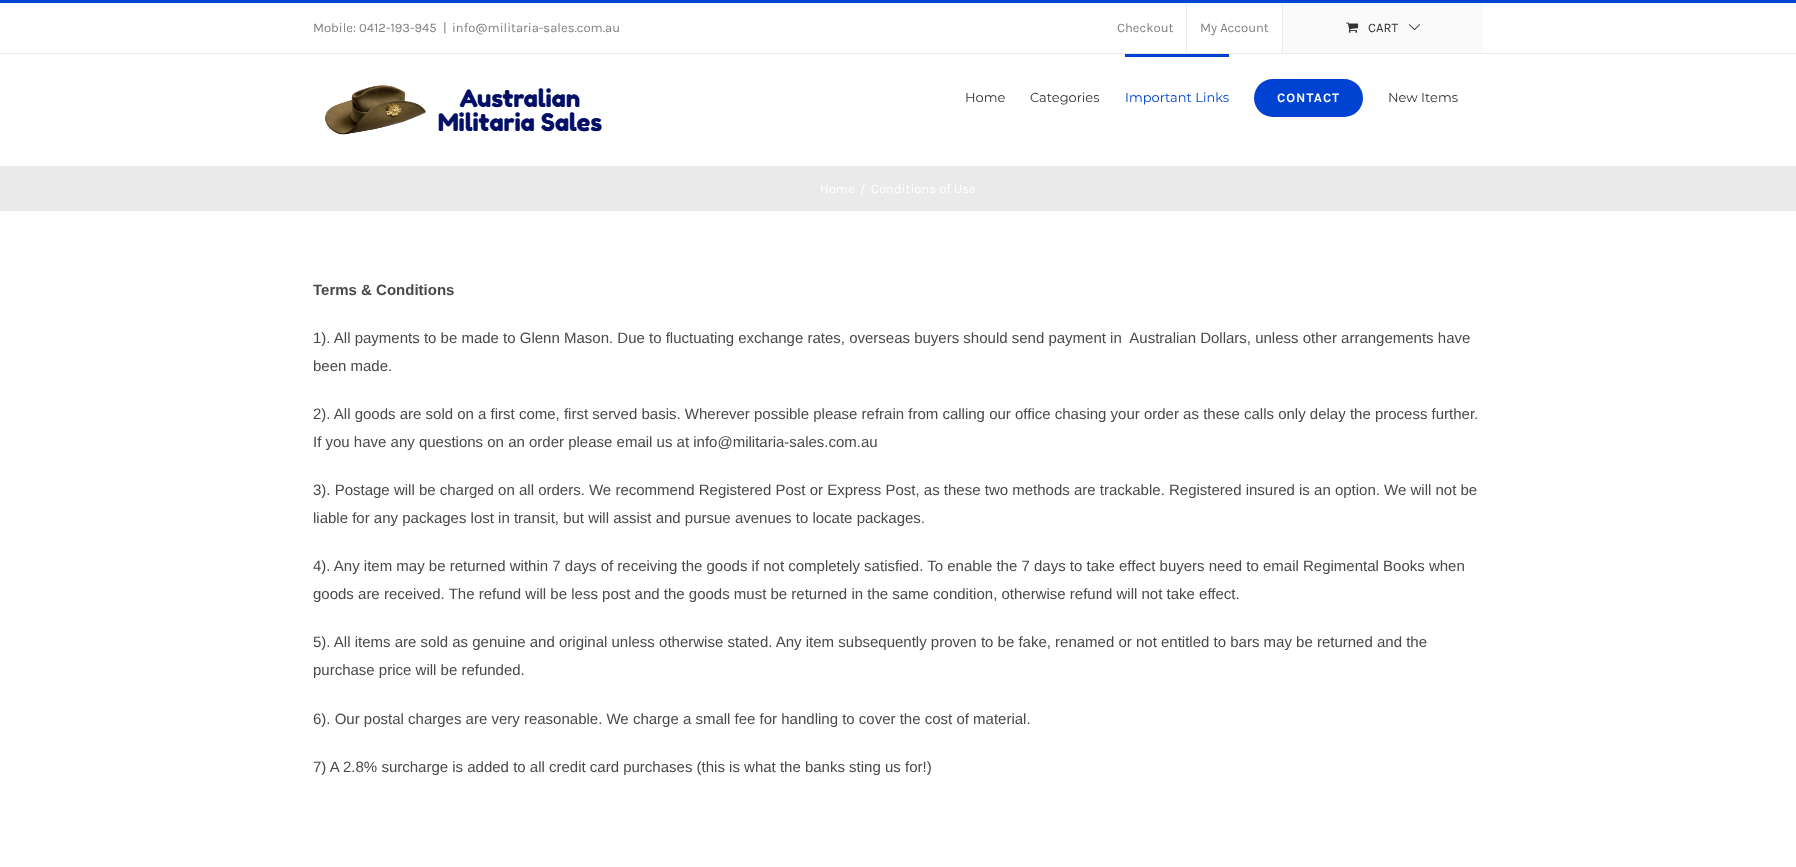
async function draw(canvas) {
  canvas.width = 1796;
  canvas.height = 867;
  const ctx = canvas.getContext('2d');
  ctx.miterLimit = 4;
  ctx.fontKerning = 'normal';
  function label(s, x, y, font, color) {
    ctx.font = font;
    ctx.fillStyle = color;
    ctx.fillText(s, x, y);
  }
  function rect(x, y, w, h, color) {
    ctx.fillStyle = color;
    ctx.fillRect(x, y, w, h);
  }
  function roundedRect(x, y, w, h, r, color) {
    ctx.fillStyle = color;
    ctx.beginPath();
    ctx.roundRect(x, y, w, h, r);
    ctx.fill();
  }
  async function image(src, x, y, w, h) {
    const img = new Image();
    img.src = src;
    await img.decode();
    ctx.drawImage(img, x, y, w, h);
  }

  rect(0, 0, 1796, 867, '#fff');
  rect(0, 0, 1796, 3, '#0042d1');
  rect(0, 53, 1796, 1, '#eaeaea');
  label('Mobile: 0412-193-945', 313, 32, '13px Karla', '#808080');
  label('|', 443, 32, '13px Karla', '#808080');
  label('info@militaria-sales.com.au', 452, 32, '13px Karla', '#808080');
  label('Checkout', 1117, 32, '13px Karla', '#808080');
  rect(1186, 3, 1, 50, '#eaeaea');
  label('My Account', 1200, 32, '13px Karla', '#808080');
  rect(1282, 3, 1, 50, '#eaeaea');
  rect(1283, 3, 200, 50, '#fafafa');
  await image('assets/img1.png', 1346, 22, 13, 11);
  label('CART', 1368, 32, '13px Karla', '#333');
  await image('assets/img2.png', 1409, 24, 11, 7);
  await image('assets/img3.png', 325, 85, 277, 50);
  label('Home', 965, 102, '13px Montserrat', '#333');
  label('Categories', 1030, 102, '13px Montserrat', '#333');
  rect(1125, 54, 104, 3, '#0042d1');
  label('Important Links', 1125, 102, '13px Montserrat', '#0042d1');
  roundedRect(1254, 79, 109, 38, 19, '#0042d1');
  ctx.letterSpacing = '1px';
  label('CONTACT', 1277, 102, 'bold 13px Karla', '#fff');
  ctx.letterSpacing = '0px';
  label('New Items', 1388, 102, '13px Montserrat', '#333');
  rect(0, 166, 1796, 45, '#eaeaea');
  label('Home', 820, 193, '13px Karla', '#fff');
  label('/', 860, 193, '13px Karla', '#fff');
  label('Conditions of Use', 871, 193, '13px Karla', '#fff');
  label('Terms & Conditions', 313, 295, 'bold 15px Liberation Sans', '#494949');
  label('1). All payments to be made to Glenn Mason. Due to fluctuating exchange rates, overseas buyers should send payment in  Australian Dollars, unless other arrangements have', 313, 343, '15px Liberation Sans', '#494949');
  label('been made.', 313, 371, '15px Liberation Sans', '#494949');
  label('2). All goods are sold on a first come, first served basis. Wherever possible please refrain from calling our office chasing your order as these calls only delay the process further.', 313, 419, '15px Liberation Sans', '#494949');
  label('If you have any questions on an order please email us at info@militaria-sales.com.au', 313, 447, '15px Liberation Sans', '#494949');
  label('3). Postage will be charged on all orders. We recommend Registered Post or Express Post, as these two methods are trackable. Registered insured is an option. We will not be', 313, 495, '15px Liberation Sans', '#494949');
  label('liable for any packages lost in transit, but will assist and pursue avenues to locate packages.', 313, 523, '15px Liberation Sans', '#494949');
  label('4). Any item may be returned within 7 days of receiving the goods if not completely satisfied. To enable the 7 days to take effect buyers need to email Regimental Books when', 313, 571, '15px Liberation Sans', '#494949');
  label('goods are received. The refund will be less post and the goods must be returned in the same condition, otherwise refund will not take effect.', 313, 599, '15px Liberation Sans', '#494949');
  label('5). All items are sold as genuine and original unless otherwise stated. Any item subsequently proven to be fake, renamed or not entitled to bars may be returned and the', 313, 647, '15px Liberation Sans', '#494949');
  label('purchase price will be refunded.', 313, 675, '15px Liberation Sans', '#494949');
  label('6). Our postal charges are very reasonable. We charge a small fee for handling to cover the cost of material.', 313, 724, '15px Liberation Sans', '#494949');
  label('7) A 2.8% surcharge is added to all credit card purchases (this is what the banks sting us for!)', 313, 772, '15px Liberation Sans', '#494949');
}

draw(document.querySelector('canvas'));
